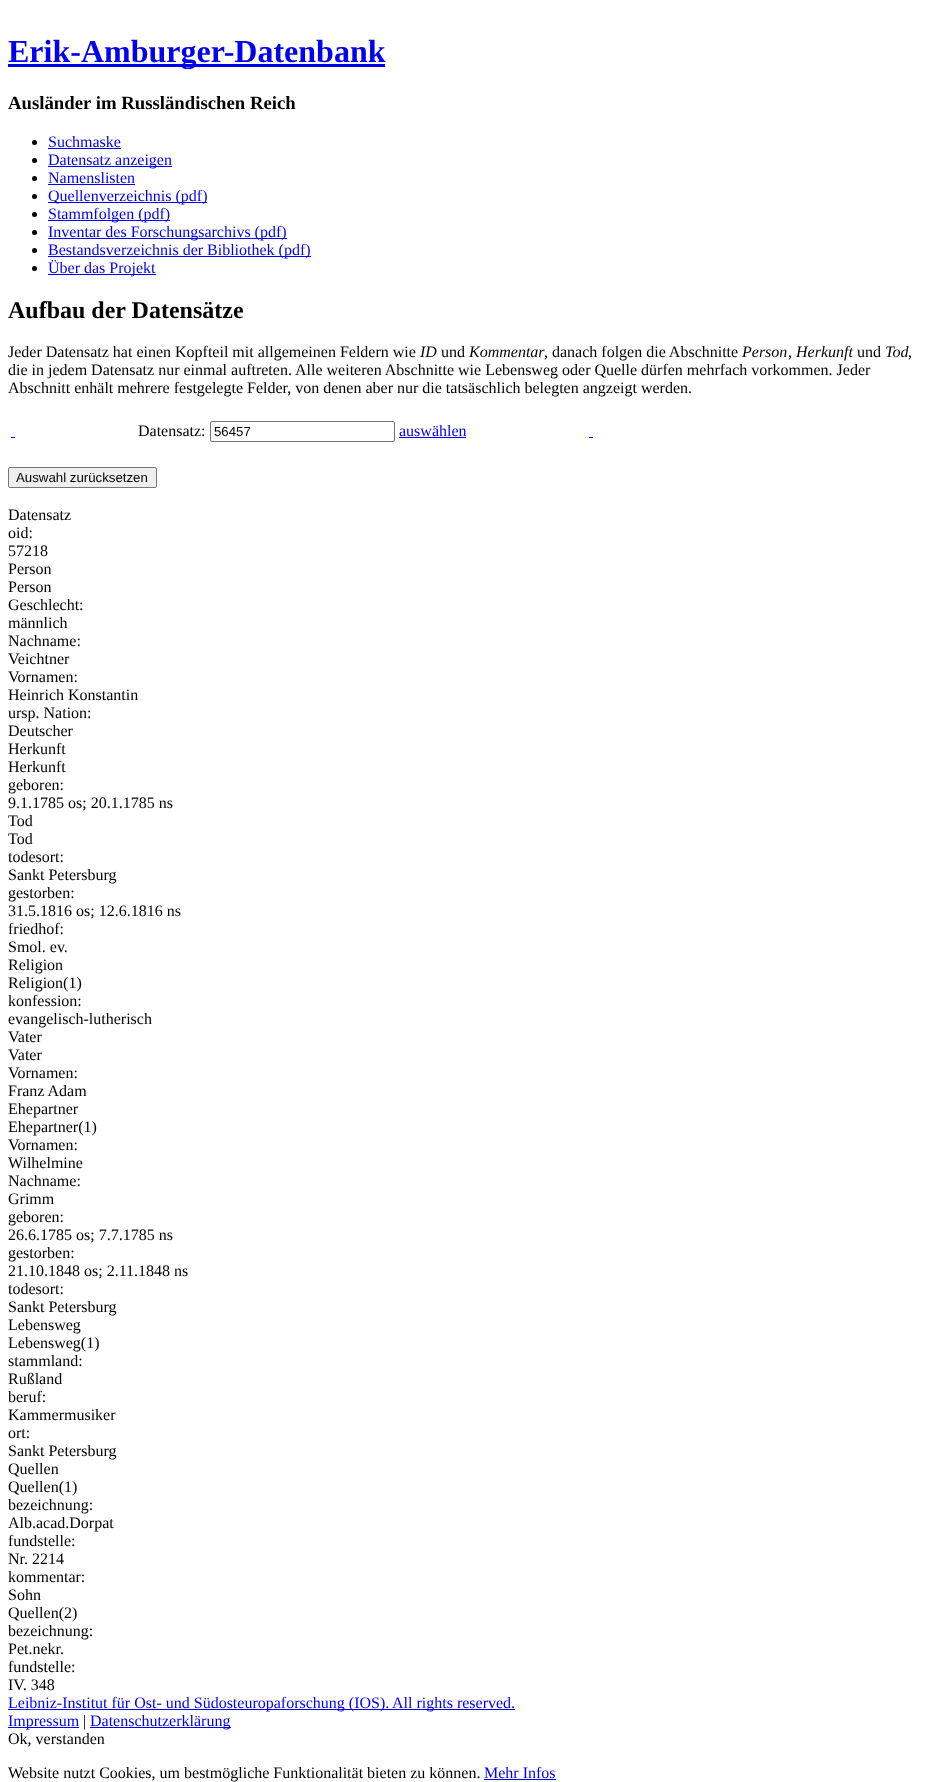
async function draw(canvas) {
  canvas.width = 937;
  canvas.height = 1782;
  const ctx = canvas.getContext('2d');
  ctx.miterLimit = 4;
  ctx.fontKerning = 'normal';
  function label(s, x, y, font, color) {
    ctx.font = font;
    ctx.fillStyle = color;
    ctx.fillText(s, x, y);
  }
  function rect(x, y, w, h, color) {
    ctx.fillStyle = color;
    ctx.fillRect(x, y, w, h);
  }

  rect(0, 0, 937, 1782, '#fff');
  rect(8, 64, 377, 3, '#00e');
  label('Erik-Amburger-Datenbank', 8, 62, 'bold 32px Liberation Serif', '#00e');
  label('Ausländer im Russländischen Reich', 8, 109, 'bold 18.75px Liberation Serif', '#000');
  ctx.beginPath();
  ctx.arc(34.5, 142.5, 2.5, 0, 2 * Math.PI);
  ctx.fill();
  label('Suchmaske', 48, 147, '16px Liberation Serif', '#00e');
  rect(48, 148, 73, 1, '#00e');
  ctx.fillStyle = '#000';
  ctx.beginPath();
  ctx.arc(34.5, 160.5, 2.5, 0, 2 * Math.PI);
  ctx.fill();
  rect(48, 166, 124, 1, '#00e');
  label('Datensatz anzeigen', 48, 165, '16px Liberation Serif', '#00e');
  ctx.fillStyle = '#000';
  ctx.beginPath();
  ctx.arc(34.5, 178.5, 2.5, 0, 2 * Math.PI);
  ctx.fill();
  label('Namenslisten', 48, 183, '16px Liberation Serif', '#00e');
  rect(48, 184, 87, 1, '#00e');
  ctx.fillStyle = '#000';
  ctx.beginPath();
  ctx.arc(34.5, 196.5, 2.5, 0, 2 * Math.PI);
  ctx.fill();
  rect(48, 202, 159, 1, '#00e');
  label('Quellenverzeichnis (pdf)', 48, 201, '16px Liberation Serif', '#00e');
  ctx.fillStyle = '#000';
  ctx.beginPath();
  ctx.arc(34.5, 214.5, 2.5, 0, 2 * Math.PI);
  ctx.fill();
  rect(48, 220, 122, 1, '#00e');
  label('Stammfolgen (pdf)', 48, 219, '16px Liberation Serif', '#00e');
  ctx.fillStyle = '#000';
  ctx.beginPath();
  ctx.arc(34.5, 232.5, 2.5, 0, 2 * Math.PI);
  ctx.fill();
  rect(48, 238, 239, 1, '#00e');
  label('Inventar des Forschungsarchivs (pdf)', 48, 237, '16px Liberation Serif', '#00e');
  ctx.fillStyle = '#000';
  ctx.beginPath();
  ctx.arc(34.5, 250.5, 2.5, 0, 2 * Math.PI);
  ctx.fill();
  rect(48, 256, 263, 1, '#00e');
  label('Bestandsverzeichnis der Bibliothek (pdf)', 48, 255, '16px Liberation Serif', '#00e');
  ctx.fillStyle = '#000';
  ctx.beginPath();
  ctx.arc(34.5, 268.5, 2.5, 0, 2 * Math.PI);
  ctx.fill();
  rect(48, 274, 108, 1, '#00e');
  label('Über das Projekt', 48, 273, '16px Liberation Serif', '#00e');
  label('Aufbau der Datensätze', 8, 318, 'bold 24px Liberation Serif', '#000');
  label('Jeder Datensatz hat einen Kopfteil mit allgemeinen Feldern wie', 8, 357, '16px Liberation Serif', '#000');
  label('ID', 420, 357, 'italic 16px Liberation Serif', '#000');
  label('und', 441, 357, '16px Liberation Serif', '#000');
  label('Kommentar', 469, 357, 'italic 16px Liberation Serif', '#000');
  label(', danach folgen die Abschnitte', 544, 357, '16px Liberation Serif', '#000');
  label('Person', 742, 357, 'italic 16px Liberation Serif', '#000');
  label(',', 788, 357, '16px Liberation Serif', '#000');
  label('Herkunft', 796, 357, 'italic 16px Liberation Serif', '#000');
  label('und', 857, 357, '16px Liberation Serif', '#000');
  label('Tod', 885, 357, 'italic 16px Liberation Serif', '#000');
  label(',', 908, 357, '16px Liberation Serif', '#000');
  label('die in jedem Datensatz nur einmal auftreten. Alle weiteren Abschnitte wie Lebensweg oder Quelle dürfen mehrfach vorkommen. Jeder', 8, 375, '16px Liberation Serif', '#000');
  label('Abschnitt enhält mehrere festgelegte Felder, von denen aber nur die tatsäschlich belegten angzeigt werden.', 8, 393, '16px Liberation Serif', '#000');
  label('Datensatz:', 138, 436, '16px Liberation Serif', '#000');
  ctx.beginPath();
  ctx.roundRect(210.5, 421.5, 184, 20, 1.5);
  ctx.strokeStyle = '#767676';
  ctx.stroke();
  label('56457', 214, 436, '13.25px Liberation Sans', '#000');
  label('auswählen', 399, 436, '16px Liberation Serif', '#00e');
  rect(399, 437, 67, 1, '#00e');
  rect(11, 437, 4, 1, '#00e');
  rect(589, 437, 4, 1, '#00e');
  ctx.fillStyle = '#efefef';
  ctx.beginPath();
  ctx.roundRect(8.5, 467.5, 148, 20, 1.5);
  ctx.fill();
  ctx.stroke();
  label('Auswahl zurücksetzen', 16, 482, '13.25px Liberation Sans', '#000');
  label('Datensatz', 8, 520, '16px Liberation Serif', '#000');
  label('oid:', 8, 538, '16px Liberation Serif', '#000');
  label('57218', 8, 556, '16px Liberation Serif', '#000');
  label('Person', 8, 574, '16px Liberation Serif', '#000');
  label('Person', 8, 592, '16px Liberation Serif', '#000');
  label('Geschlecht:', 8, 610, '16px Liberation Serif', '#000');
  label('männlich', 8, 628, '16px Liberation Serif', '#000');
  label('Nachname:', 8, 646, '16px Liberation Serif', '#000');
  label('Veichtner', 8, 664, '16px Liberation Serif', '#000');
  label('Vornamen:', 8, 682, '16px Liberation Serif', '#000');
  label('Heinrich Konstantin', 8, 700, '16px Liberation Serif', '#000');
  label('ursp. Nation:', 8, 718, '16px Liberation Serif', '#000');
  label('Deutscher', 8, 736, '16px Liberation Serif', '#000');
  label('Herkunft', 8, 754, '16px Liberation Serif', '#000');
  label('Herkunft', 8, 772, '16px Liberation Serif', '#000');
  label('geboren:', 8, 790, '16px Liberation Serif', '#000');
  label('9.1.1785 os; 20.1.1785 ns', 8, 808, '16px Liberation Serif', '#000');
  label('Tod', 8, 826, '16px Liberation Serif', '#000');
  label('Tod', 8, 844, '16px Liberation Serif', '#000');
  label('todesort:', 8, 862, '16px Liberation Serif', '#000');
  label('Sankt Petersburg', 8, 880, '16px Liberation Serif', '#000');
  label('gestorben:', 8, 898, '16px Liberation Serif', '#000');
  label('31.5.1816 os; 12.6.1816 ns', 8, 916, '16px Liberation Serif', '#000');
  label('friedhof:', 8, 934, '16px Liberation Serif', '#000');
  label('Smol. ev.', 8, 952, '16px Liberation Serif', '#000');
  label('Religion', 8, 970, '16px Liberation Serif', '#000');
  label('Religion(1)', 8, 988, '16px Liberation Serif', '#000');
  label('konfession:', 8, 1006, '16px Liberation Serif', '#000');
  label('evangelisch-lutherisch', 8, 1024, '16px Liberation Serif', '#000');
  label('Vater', 8, 1042, '16px Liberation Serif', '#000');
  label('Vater', 8, 1060, '16px Liberation Serif', '#000');
  label('Vornamen:', 8, 1078, '16px Liberation Serif', '#000');
  label('Franz Adam', 8, 1096, '16px Liberation Serif', '#000');
  label('Ehepartner', 8, 1114, '16px Liberation Serif', '#000');
  label('Ehepartner(1)', 8, 1132, '16px Liberation Serif', '#000');
  label('Vornamen:', 8, 1150, '16px Liberation Serif', '#000');
  label('Wilhelmine', 8, 1168, '16px Liberation Serif', '#000');
  label('Nachname:', 8, 1186, '16px Liberation Serif', '#000');
  label('Grimm', 8, 1204, '16px Liberation Serif', '#000');
  label('geboren:', 8, 1222, '16px Liberation Serif', '#000');
  label('26.6.1785 os; 7.7.1785 ns', 8, 1240, '16px Liberation Serif', '#000');
  label('gestorben:', 8, 1258, '16px Liberation Serif', '#000');
  label('21.10.1848 os; 2.11.1848 ns', 8, 1276, '16px Liberation Serif', '#000');
  label('todesort:', 8, 1294, '16px Liberation Serif', '#000');
  label('Sankt Petersburg', 8, 1312, '16px Liberation Serif', '#000');
  label('Lebensweg', 8, 1330, '16px Liberation Serif', '#000');
  label('Lebensweg(1)', 8, 1348, '16px Liberation Serif', '#000');
  label('stammland:', 8, 1366, '16px Liberation Serif', '#000');
  label('Rußland', 8, 1384, '16px Liberation Serif', '#000');
  label('beruf:', 8, 1402, '16px Liberation Serif', '#000');
  label('Kammermusiker', 8, 1420, '16px Liberation Serif', '#000');
  label('ort:', 8, 1438, '16px Liberation Serif', '#000');
  label('Sankt Petersburg', 8, 1456, '16px Liberation Serif', '#000');
  label('Quellen', 8, 1474, '16px Liberation Serif', '#000');
  label('Quellen(1)', 8, 1492, '16px Liberation Serif', '#000');
  label('bezeichnung:', 8, 1510, '16px Liberation Serif', '#000');
  label('Alb.acad.Dorpat', 8, 1528, '16px Liberation Serif', '#000');
  label('fundstelle:', 8, 1546, '16px Liberation Serif', '#000');
  label('Nr. 2214', 8, 1564, '16px Liberation Serif', '#000');
  label('kommentar:', 8, 1582, '16px Liberation Serif', '#000');
  label('Sohn', 8, 1600, '16px Liberation Serif', '#000');
  label('Quellen(2)', 8, 1618, '16px Liberation Serif', '#000');
  label('bezeichnung:', 8, 1636, '16px Liberation Serif', '#000');
  label('Pet.nekr.', 8, 1654, '16px Liberation Serif', '#000');
  label('fundstelle:', 8, 1672, '16px Liberation Serif', '#000');
  label('IV. 348', 8, 1690, '16px Liberation Serif', '#000');
  rect(8, 1709, 507, 1, '#00e');
  label('Leibniz-Institut für Ost- und Südosteuropaforschung (IOS).', 8, 1708, '16px Liberation Serif', '#00e');
  label('All rights reserved.', 392, 1708, '16px Liberation Serif', '#00e');
  rect(8, 1727, 71, 1, '#00e');
  label('Impressum', 8, 1726, '16px Liberation Serif', '#00e');
  label('|', 83, 1726, '16px Liberation Serif', '#000');
  rect(90, 1727, 141, 1, '#00e');
  label('Datenschutzerklärung', 90, 1726, '16px Liberation Serif', '#00e');
  label('Ok, verstanden', 8, 1744, '16px Liberation Serif', '#000');
  label('Website nutzt Cookies, um bestmögliche Funktionalität bieten zu können.', 8, 1778, '16px Liberation Serif', '#000');
  label('Mehr Infos', 484, 1778, '16px Liberation Serif', '#00e');
  rect(484, 1779, 72, 1, '#00e');
}

draw(document.querySelector('canvas'));
